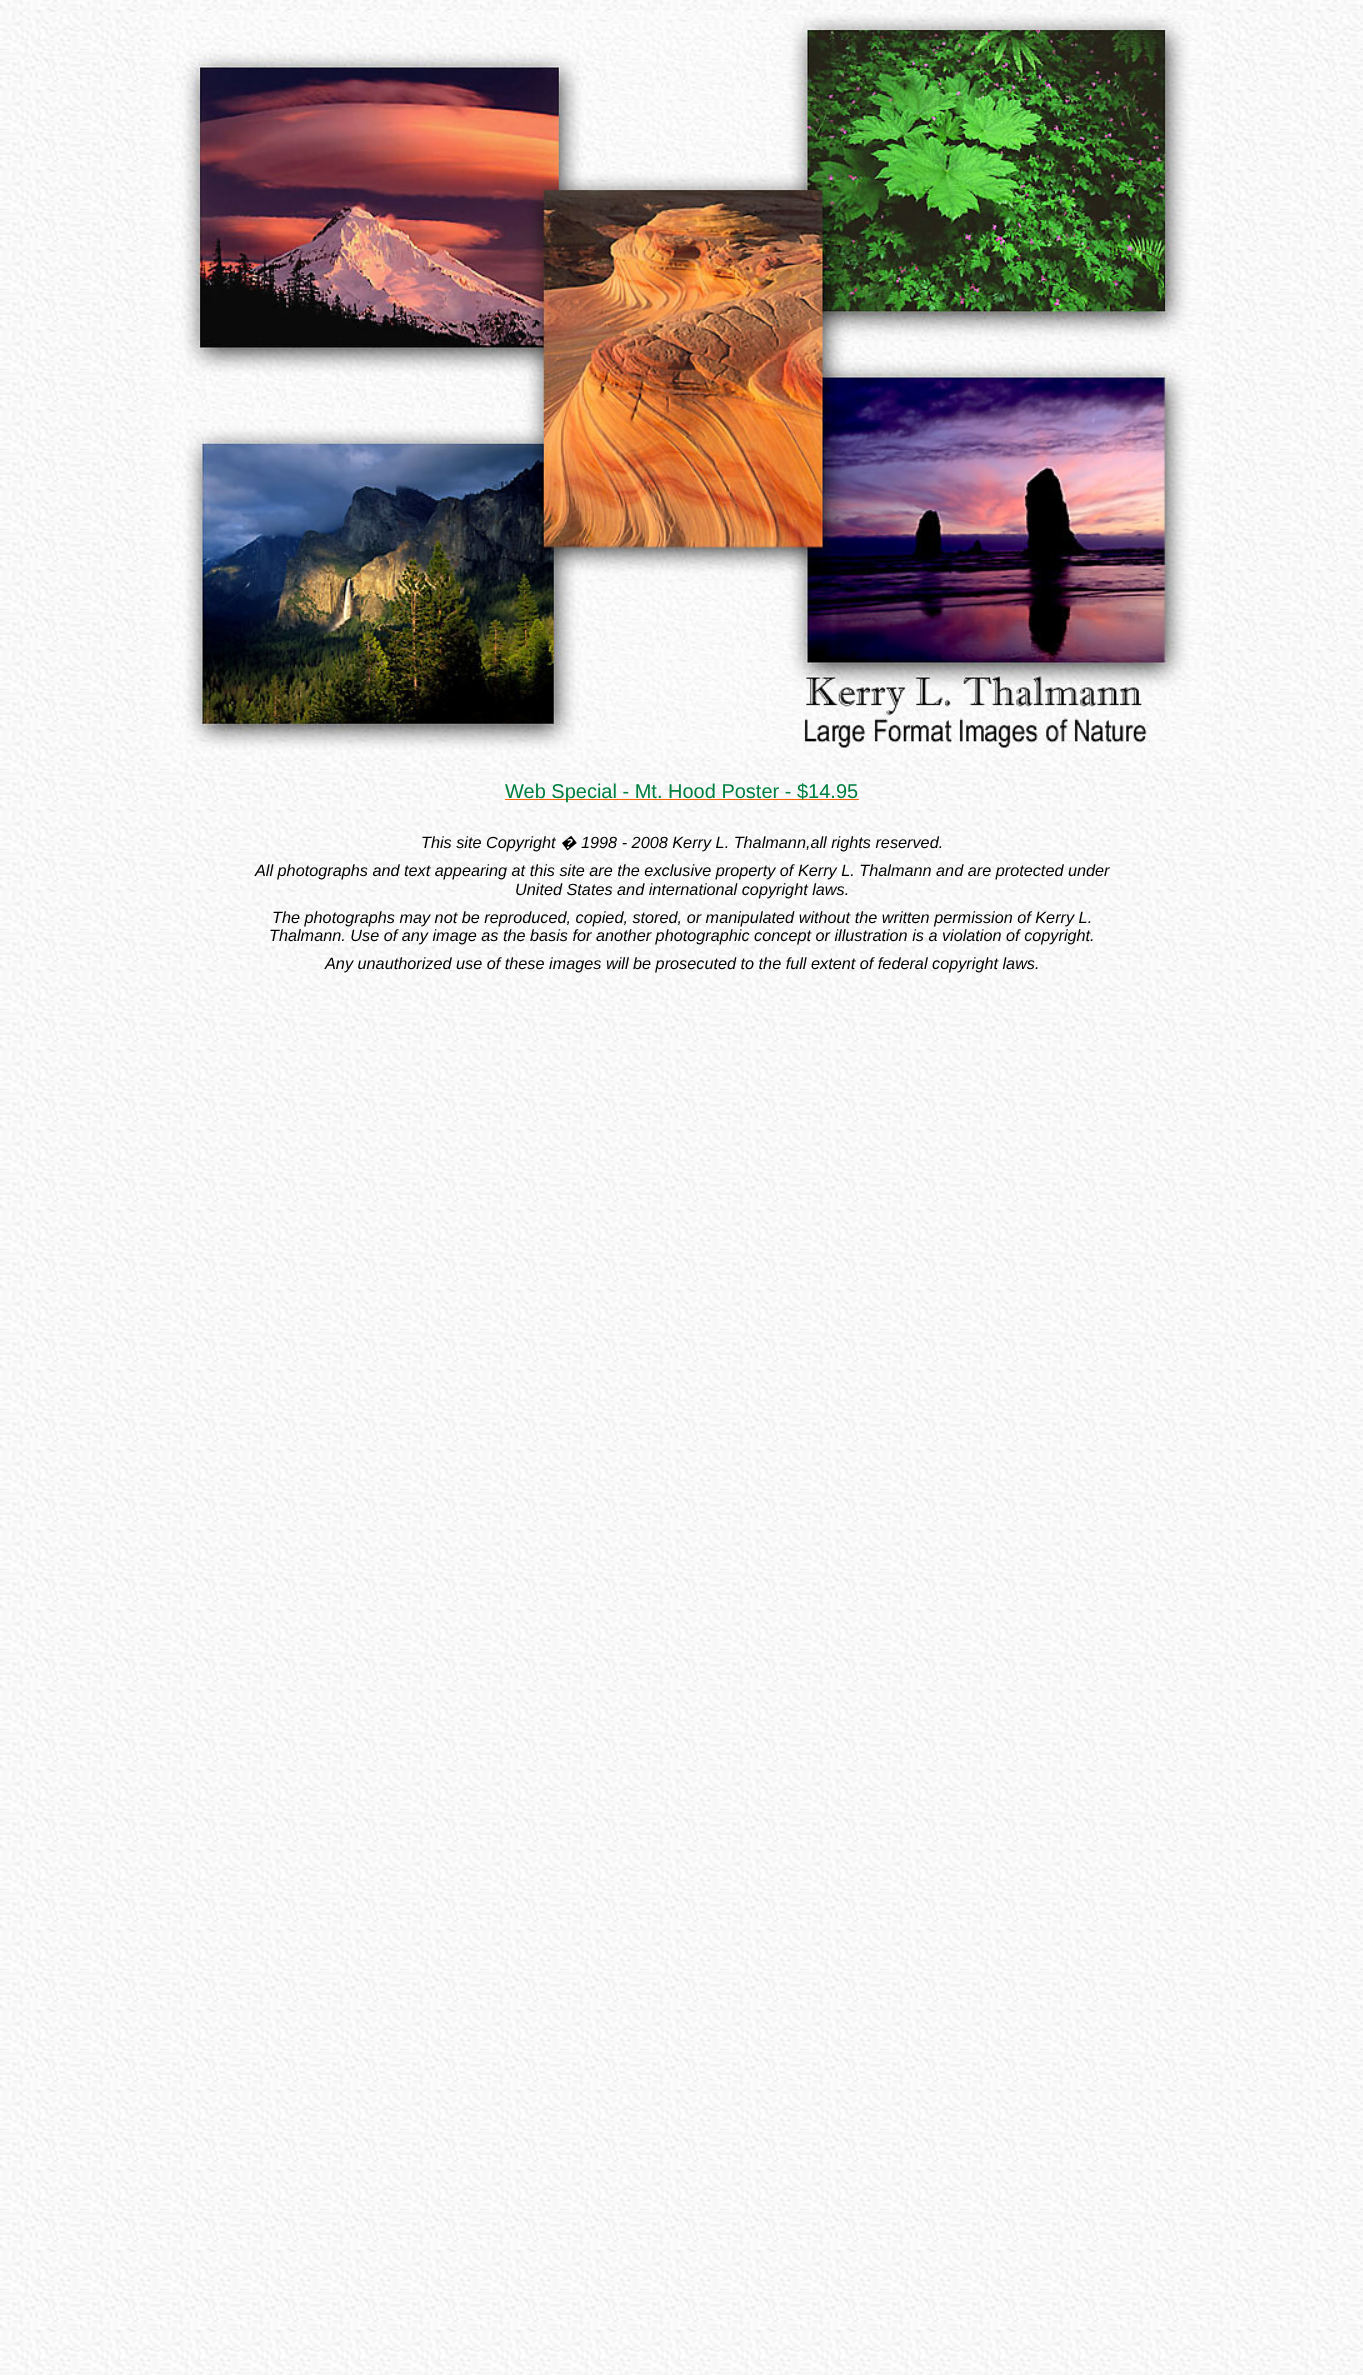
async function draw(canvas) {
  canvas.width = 1363;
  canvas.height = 2375;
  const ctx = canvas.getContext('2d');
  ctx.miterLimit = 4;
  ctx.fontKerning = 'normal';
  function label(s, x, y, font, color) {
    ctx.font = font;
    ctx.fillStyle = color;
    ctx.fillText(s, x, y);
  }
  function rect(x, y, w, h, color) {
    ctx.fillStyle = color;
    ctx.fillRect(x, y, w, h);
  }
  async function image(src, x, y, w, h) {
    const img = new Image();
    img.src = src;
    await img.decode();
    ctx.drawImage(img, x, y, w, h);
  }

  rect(0, 0, 1363, 2375, '#fff');
  await image('assets/img1.png', 0, 0, 1363, 2375);
  await image('assets/img2.png', 151, 10, 1063, 750);
  rect(505, 799, 354, 1, '#f60');
  label('Web Special - Mt. Hood Poster - $14.95', 505, 798, '20px Liberation Sans', '#008040');
  label('This site Copyright', 421, 848, 'italic 16.25px Liberation Sans', '#000');
  label('�', 560, 848, 'italic 16.25px Noto Sans', '#000');
  label('1998 - 2008 Kerry L. Thalmann,all rights reserved.', 581, 848, 'italic 16.25px Liberation Sans', '#000');
  label('All photographs and text appearing at this site are the exclusive property of Kerry L. Thalmann and are protected under', 255, 876, 'italic 16.25px Liberation Sans', '#000');
  label('United States and international copyright laws.', 515, 895, 'italic 16.25px Liberation Sans', '#000');
  label('The photographs may not be reproduced, copied, stored, or manipulated without the written permission of Kerry L.', 272, 923, 'italic 16.25px Liberation Sans', '#000');
  label('Thalmann. Use of any image as the basis for another photographic concept or illustration is a violation of copyright.', 269, 941, 'italic 16.25px Liberation Sans', '#000');
  label('Any unauthorized use of these images will be prosecuted to the full extent of federal copyright laws.', 325, 969, 'italic 16.25px Liberation Sans', '#000');
}

draw(document.querySelector('canvas'));
